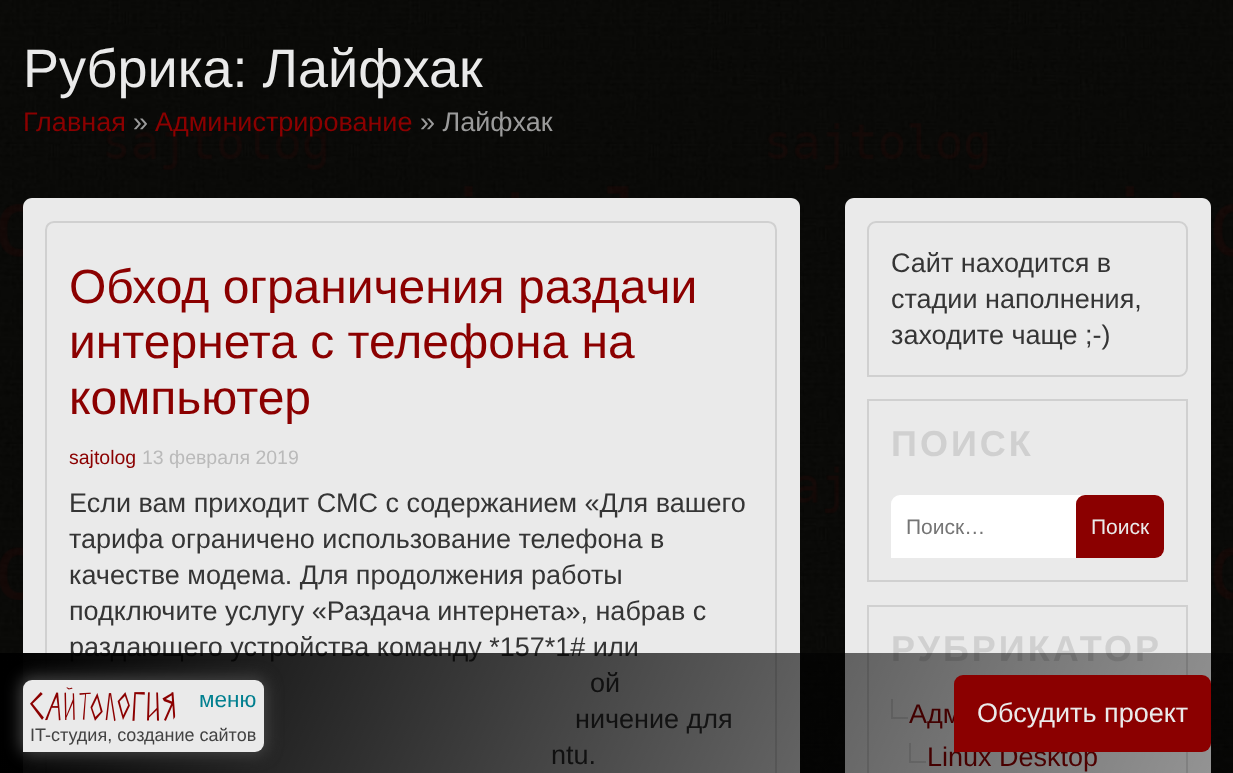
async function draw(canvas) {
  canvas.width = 1233;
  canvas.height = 773;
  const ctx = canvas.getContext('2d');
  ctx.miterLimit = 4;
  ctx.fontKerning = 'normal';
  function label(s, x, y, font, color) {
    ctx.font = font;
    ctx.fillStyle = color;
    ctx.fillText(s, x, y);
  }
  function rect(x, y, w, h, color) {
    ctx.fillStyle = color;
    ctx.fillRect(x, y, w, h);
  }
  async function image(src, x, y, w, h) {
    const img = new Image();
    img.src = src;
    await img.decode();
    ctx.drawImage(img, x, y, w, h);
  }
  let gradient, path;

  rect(0, 0, 1233, 773, '#fff');
  await image('assets/img1.png', 0, 0, 1233, 773);
  await image('assets/img2.png', 0, 123, 1233, 477);
  label('Рубрика: Лайфхак', 23, 87, '54px Liberation Sans', '#eaeaea');
  label('Главная', 23, 131, '27px Liberation Sans', '#8b0000');
  label('»', 133, 131, '27px Liberation Sans', '#9b9b9b');
  label('Администрирование', 155, 131, '27px Liberation Sans', '#8b0000');
  label('» Лайфхак', 420, 131, '27px Liberation Sans', '#9b9b9b');
  ctx.fillStyle = '#eaeaea';
  path = new Path2D('M32 198H791C796 198 800 202 800 207V773C800 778 796 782 791 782H23V207C23 202 27 198 32 198Z');
  ctx.fill(path);
  path = new Path2D('M54 222H768C772.5 222 776 225.5 776 230V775C776 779.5 772.5 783 768 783H46V230C46 225.5 49.5 222 54 222Z');
  ctx.strokeStyle = '#d0d0d0';
  ctx.lineWidth = 2;
  ctx.stroke(path);
  label('Обход ограничения раздачи', 69, 303, '48px Liberation Sans', '#8b0000');
  label('интернета с телефона на', 69, 358, '48px Liberation Sans', '#8b0000');
  label('компьютер', 69, 414, '48px Liberation Sans', '#8b0000');
  label('sajtolog', 69, 464, '19.5px Liberation Sans', '#8b0000');
  label('13 февраля 2019', 142, 464, '19.5px Liberation Sans', '#bababa');
  label('Если вам приходит СМС с содержанием «Для вашего', 69, 512, '27px Liberation Sans', '#353535');
  label('тарифа ограничено использование телефона в', 69, 548, '27px Liberation Sans', '#353535');
  label('качестве модема. Для продолжения работы', 69, 584, '27px Liberation Sans', '#353535');
  label('подключите услугу «Раздача интернета», набрав с', 69, 620, '27px Liberation Sans', '#353535');
  label('раздающего устройства команду *157*1# или', 69, 656, '27px Liberation Sans', '#353535');
  label('ой', 590, 692, '27px Liberation Sans', '#353535');
  label('ничение для', 575, 728, '27px Liberation Sans', '#353535');
  label('ntu.', 551, 764, '27px Liberation Sans', '#353535');
  ctx.fillStyle = '#eaeaea';
  path = new Path2D('M854 198H1202C1207 198 1211 202 1211 207V773C1211 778 1207 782 1202 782H845V207C845 202 849 198 854 198Z');
  ctx.fill(path);
  ctx.beginPath();
  ctx.roundRect(868, 222, 319, 154, [8, 8, 8, 0]);
  ctx.stroke();
  label('Сайт находится в', 891, 272, '27px Liberation Sans', '#353535');
  label('стадии наполнения,', 891, 308, '27px Liberation Sans', '#353535');
  label('заходите чаще ;-)', 891, 344, '27px Liberation Sans', '#353535');
  ctx.strokeRect(868, 400, 319, 181);
  ctx.letterSpacing = '3px';
  label('ПОИСК', 891, 456, 'bold 36px Liberation Sans', '#d0d0d0');
  ctx.fillStyle = '#fff';
  ctx.beginPath();
  ctx.roundRect(891, 495, 273, 63, [9, 9, 9, 0]);
  ctx.fill();
  ctx.letterSpacing = '0px';
  label('Поиск…', 906, 534, '21px Liberation Sans', '#757575');
  ctx.fillStyle = '#8b0000';
  ctx.beginPath();
  ctx.roundRect(1076, 495, 88, 63, [9, 9, 9, 0]);
  ctx.fill();
  label('Поиск', 1091, 534, '21px Liberation Sans', '#eaeaea');
  ctx.strokeRect(868, 606, 319, 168);
  ctx.letterSpacing = '3px';
  label('РУБРИКАТОР', 891, 661, 'bold 36px Liberation Sans', '#d0d0d0');
  rect(891, 717, 17, 2, '#d0d0d0');
  rect(891, 699, 2, 20, '#d0d0d0');
  ctx.letterSpacing = '0px';
  label('Адм', 909, 723, '27px Liberation Sans', '#8b0000');
  rect(909, 761, 17, 2, '#d0d0d0');
  rect(909, 743, 2, 19, '#d0d0d0');
  label('Linux Desktop', 927, 766, '27px Liberation Sans', '#8b0000');
  gradient = ctx.createLinearGradient(87, 466, 1146, 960);
  gradient.addColorStop(0, '#000');
  gradient.addColorStop(1, '#0000005c');
  ctx.fillStyle = gradient;
  ctx.fillRect(0, 653, 1233, 120);
  ctx.fillStyle = '#434343';
  ctx.filter = 'blur(7.5px)';
  ctx.beginPath();
  ctx.roundRect(20, 677, 247, 78, 12);
  ctx.fill();
  ctx.filter = 'none';
  ctx.fillStyle = '#eaeaea';
  ctx.beginPath();
  ctx.roundRect(23, 680, 241, 72, [9, 9, 9, 0]);
  ctx.fill();
  label('меню', 199, 707, '22.5px Liberation Sans', '#007f8f');
  await image('assets/img3.png', 30, 687, 146, 35);
  label('IT-студия, создание сайтов', 30, 741, '18px Liberation Sans', '#434343');
  ctx.fillStyle = '#8b0000';
  ctx.beginPath();
  ctx.roundRect(954, 675, 257, 77, [9, 9, 9, 0]);
  ctx.fill();
  label('Обсудить проект', 977, 722, '27px Liberation Sans', '#eaeaea');
}

draw(document.querySelector('canvas'));
